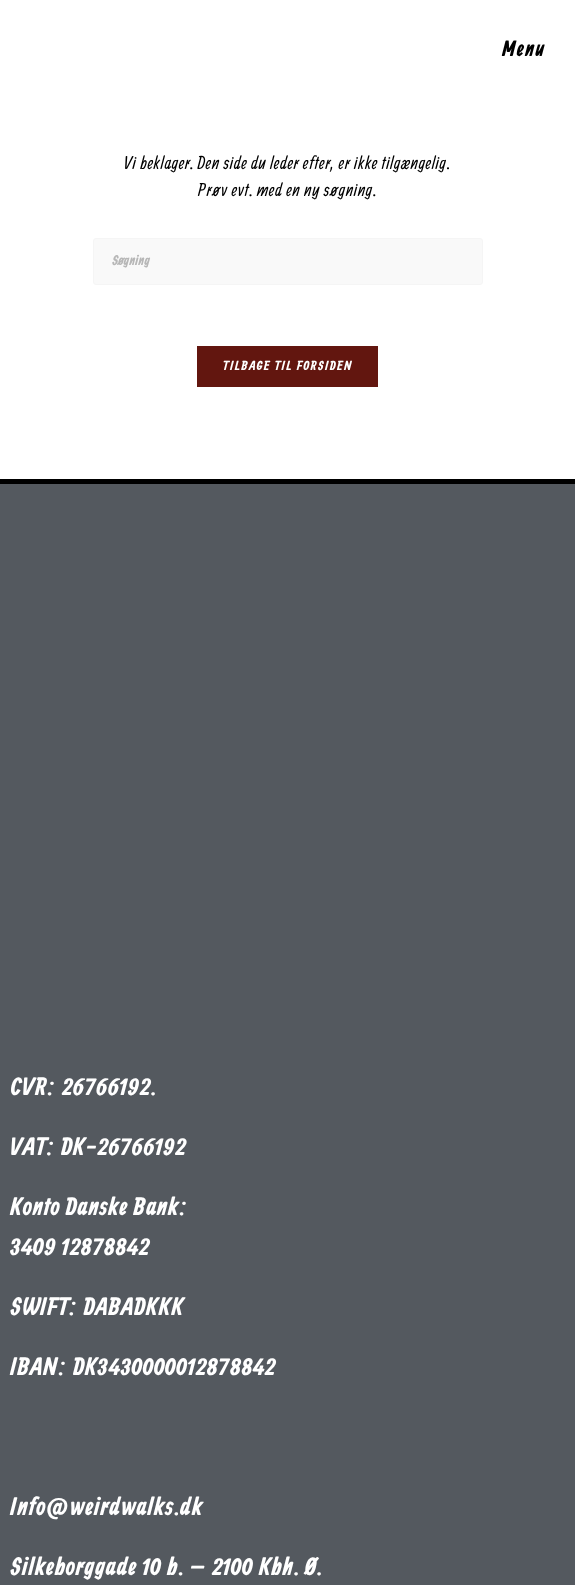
async function draw(canvas) {
  canvas.width = 575;
  canvas.height = 1585;
  const ctx = canvas.getContext('2d');
  ctx.miterLimit = 4;
  ctx.fontKerning = 'normal';
  function label(s, x, y, font, color) {
    ctx.font = font;
    ctx.fillStyle = color;
    ctx.fillText(s, x, y);
  }
  function rect(x, y, w, h, color) {
    ctx.fillStyle = color;
    ctx.fillRect(x, y, w, h);
  }

  rect(0, 0, 575, 1585, '#fff');
  ctx.letterSpacing = '1px';
  label('Menu', 502, 56, 'bold 22px Allan', '#000');
  ctx.letterSpacing = '0.5px';
  label('Vi beklager. Den side du leder efter, er ikke tilgængelig.', 124, 169, '18px Allan', '#000');
  label('Prøv evt. med en ny søgning.', 198, 196, '18px Allan', '#000');
  ctx.fillStyle = '#f9f9f9';
  ctx.beginPath();
  ctx.roundRect(93.5, 238.5, 389, 46, 2.5);
  ctx.fill();
  ctx.strokeStyle = '#f5f5f5';
  ctx.stroke();
  ctx.letterSpacing = '0px';
  label('Søgning', 112, 265, 'bold 14px Allan', '#b7b7b7');
  rect(197, 346, 181, 41, '#62160f');
  ctx.letterSpacing = '1.3px';
  label('TILBAGE TIL FORSIDEN', 223, 370, 'bold 13px Allan', '#fff');
  rect(0, 484, 575, 1101, '#54595f');
  rect(0, 479, 575, 5, '#000');
  ctx.letterSpacing = '0.5px';
  label('CVR: 26766192.', 11, 1095, 'bold 25px Allan', '#fff');
  label('VAT: DK-26766192', 10, 1155, 'bold 25px Allan', '#fff');
  label('Konto Danske Bank:', 10, 1215, 'bold 25px Allan', '#fff');
  label('3409 12878842', 10, 1255, 'bold 25px Allan', '#fff');
  label('SWIFT: DABADKKK', 10, 1315, 'bold 25px Allan', '#fff');
  label('IBAN: DK3430000012878842', 10, 1375, 'bold 25px Allan', '#fff');
  label('Info@weirdwalks.dk', 10, 1515, 'bold 25px Allan', '#fff');
  label('Silkeborggade 10 b. – 2100 Kbh. Ø.', 10, 1575, 'bold 25px Allan', '#fff');
}

draw(document.querySelector('canvas'));
